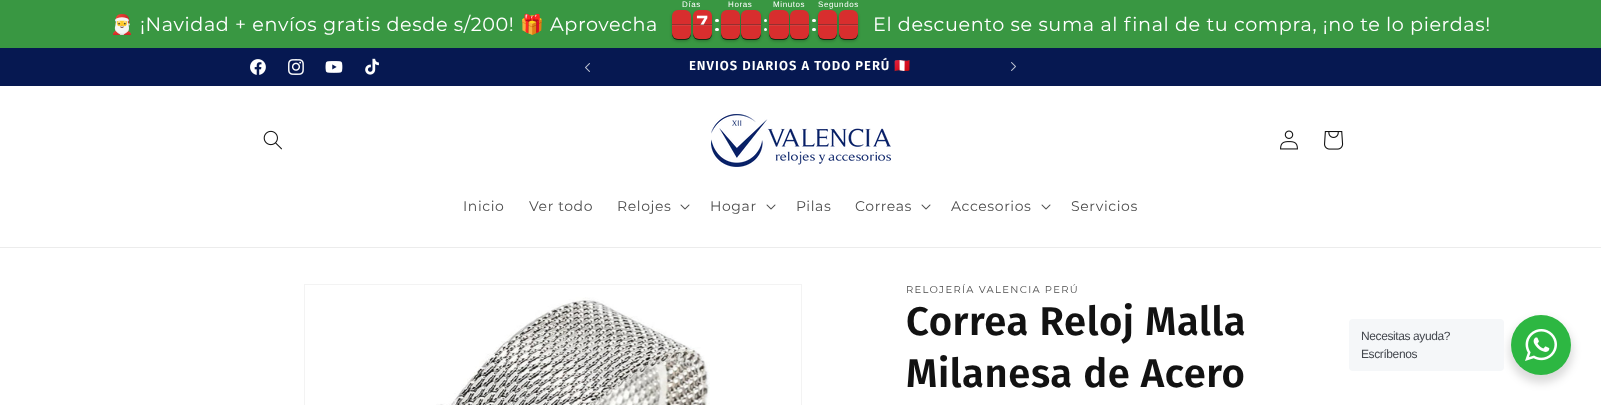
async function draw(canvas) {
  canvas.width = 1601;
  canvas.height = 405;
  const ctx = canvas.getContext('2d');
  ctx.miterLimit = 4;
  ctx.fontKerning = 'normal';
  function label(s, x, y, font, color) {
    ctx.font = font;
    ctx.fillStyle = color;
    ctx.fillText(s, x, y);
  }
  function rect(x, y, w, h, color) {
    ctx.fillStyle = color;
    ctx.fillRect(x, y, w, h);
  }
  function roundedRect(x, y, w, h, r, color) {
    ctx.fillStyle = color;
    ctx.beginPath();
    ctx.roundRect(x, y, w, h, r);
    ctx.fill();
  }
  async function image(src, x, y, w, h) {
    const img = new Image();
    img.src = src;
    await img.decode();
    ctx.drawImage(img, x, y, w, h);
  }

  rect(0, 0, 1601, 405, '#fff');
  rect(0, 0, 1601, 48, '#399742');
  ctx.letterSpacing = '0.6px';
  label('🎅', 110, 31, '19.2px Noto Color Emoji', '#fff');
  label('¡Navidad + envíos gratis desde s/200!', 140, 31, '19.2px Montserrat', '#fff');
  label('🎁', 520, 31, '19.2px Noto Color Emoji', '#fff');
  label('Aprovecha', 550, 31, '19.2px Montserrat', '#fff');
  ctx.fillStyle = '#0000003d';
  ctx.filter = 'blur(1.5px)';
  ctx.beginPath();
  ctx.roundRect(672, 12, 19, 29, 6);
  ctx.fill();
  ctx.filter = 'none';
  ctx.filter = 'blur(1.5px)';
  ctx.beginPath();
  ctx.roundRect(693, 12, 19, 29, 6);
  ctx.fill();
  ctx.filter = 'none';
  label('Días', 682, 7, '8px Liberation Sans', '#fff');
  ctx.fillStyle = '#00000066';
  ctx.filter = 'blur(0.5px)';
  ctx.beginPath();
  ctx.roundRect(672, 26, 19, 14, 6);
  ctx.fill();
  ctx.filter = 'none';
  ctx.filter = 'blur(0.5px)';
  ctx.beginPath();
  ctx.roundRect(693, 26, 19, 14, 6);
  ctx.fill();
  ctx.filter = 'none';
  ctx.fillStyle = '#d82e2e';
  ctx.beginPath();
  ctx.roundRect(672, 10, 19, 15, [6, 6, 0, 0]);
  ctx.fill();
  rect(672, 24, 19, 1, '#33333366');
  ctx.fillStyle = '#00000066';
  ctx.filter = 'blur(0.5px)';
  ctx.beginPath();
  ctx.roundRect(672, 26, 19, 14, 6);
  ctx.fill();
  ctx.filter = 'none';
  ctx.fillStyle = '#d82e2e';
  ctx.beginPath();
  ctx.roundRect(672, 25, 19, 14, [0, 0, 6, 6]);
  ctx.fill();
  rect(672, 25, 19, 1, '#cccccc1a');
  ctx.fillStyle = '#d82e2e';
  ctx.beginPath();
  ctx.roundRect(693, 10, 19, 15, [6, 6, 0, 0]);
  ctx.fill();
  label('7', 696, 31, 'bold 22px Liberation Sans', '#fff');
  rect(693, 24, 19, 1, '#33333366');
  ctx.fillStyle = '#00000066';
  ctx.filter = 'blur(0.5px)';
  ctx.beginPath();
  ctx.roundRect(693, 26, 19, 14, 6);
  ctx.fill();
  ctx.filter = 'none';
  ctx.fillStyle = '#d82e2e';
  ctx.beginPath();
  ctx.roundRect(693, 25, 19, 14, [0, 0, 6, 6]);
  ctx.fill();
  rect(693, 25, 19, 1, '#cccccc1a');
  roundedRect(715, 19, 4, 3, 1.5, '#fff');
  roundedRect(715, 28, 4, 3, 1.5, '#fff');
  ctx.fillStyle = '#0000003d';
  ctx.filter = 'blur(1.5px)';
  ctx.beginPath();
  ctx.roundRect(721, 12, 19, 29, 6);
  ctx.fill();
  ctx.filter = 'none';
  ctx.filter = 'blur(1.5px)';
  ctx.beginPath();
  ctx.roundRect(741, 12, 20, 29, 6);
  ctx.fill();
  ctx.filter = 'none';
  label('Horas', 728, 7, '8px Liberation Sans', '#fff');
  ctx.fillStyle = '#00000066';
  ctx.filter = 'blur(0.5px)';
  ctx.beginPath();
  ctx.roundRect(721, 26, 19, 14, 6);
  ctx.fill();
  ctx.filter = 'none';
  ctx.filter = 'blur(0.5px)';
  ctx.beginPath();
  ctx.roundRect(741, 26, 20, 14, 6);
  ctx.fill();
  ctx.filter = 'none';
  ctx.fillStyle = '#d82e2e';
  ctx.beginPath();
  ctx.roundRect(721, 10, 19, 15, [6, 6, 0, 0]);
  ctx.fill();
  rect(721, 24, 19, 1, '#33333366');
  ctx.fillStyle = '#00000066';
  ctx.filter = 'blur(0.5px)';
  ctx.beginPath();
  ctx.roundRect(721, 26, 19, 14, 6);
  ctx.fill();
  ctx.filter = 'none';
  ctx.fillStyle = '#d82e2e';
  ctx.beginPath();
  ctx.roundRect(721, 25, 19, 14, [0, 0, 6, 6]);
  ctx.fill();
  rect(721, 25, 19, 1, '#cccccc1a');
  ctx.fillStyle = '#d82e2e';
  ctx.beginPath();
  ctx.roundRect(741, 10, 20, 15, [6, 6, 0, 0]);
  ctx.fill();
  rect(741, 24, 20, 1, '#33333366');
  ctx.fillStyle = '#00000066';
  ctx.filter = 'blur(0.5px)';
  ctx.beginPath();
  ctx.roundRect(741, 26, 20, 14, 6);
  ctx.fill();
  ctx.filter = 'none';
  ctx.fillStyle = '#d82e2e';
  ctx.beginPath();
  ctx.roundRect(741, 25, 20, 14, [0, 0, 6, 6]);
  ctx.fill();
  rect(741, 25, 20, 1, '#cccccc1a');
  ctx.fillStyle = '#fff';
  ctx.beginPath();
  ctx.arc(765.5, 20.5, 1.5, 0, 2 * Math.PI);
  ctx.fill();
  ctx.beginPath();
  ctx.arc(765.5, 29.5, 1.5, 0, 2 * Math.PI);
  ctx.fill();
  ctx.fillStyle = '#0000003d';
  ctx.filter = 'blur(1.5px)';
  ctx.beginPath();
  ctx.roundRect(769, 12, 20, 29, 6);
  ctx.fill();
  ctx.filter = 'none';
  ctx.filter = 'blur(1.5px)';
  ctx.beginPath();
  ctx.roundRect(790, 12, 19, 29, 6);
  ctx.fill();
  ctx.filter = 'none';
  label('Minutos', 773, 7, '8px Liberation Sans', '#fff');
  ctx.fillStyle = '#00000066';
  ctx.filter = 'blur(0.5px)';
  ctx.beginPath();
  ctx.roundRect(769, 26, 20, 14, 6);
  ctx.fill();
  ctx.filter = 'none';
  ctx.filter = 'blur(0.5px)';
  ctx.beginPath();
  ctx.roundRect(790, 26, 19, 14, 6);
  ctx.fill();
  ctx.filter = 'none';
  ctx.fillStyle = '#d82e2e';
  ctx.beginPath();
  ctx.roundRect(769, 10, 20, 15, [6, 6, 0, 0]);
  ctx.fill();
  rect(769, 24, 20, 1, '#33333366');
  ctx.fillStyle = '#00000066';
  ctx.filter = 'blur(0.5px)';
  ctx.beginPath();
  ctx.roundRect(769, 26, 20, 14, 6);
  ctx.fill();
  ctx.filter = 'none';
  ctx.fillStyle = '#d82e2e';
  ctx.beginPath();
  ctx.roundRect(769, 25, 20, 14, [0, 0, 6, 6]);
  ctx.fill();
  rect(769, 25, 20, 1, '#cccccc1a');
  ctx.fillStyle = '#d82e2e';
  ctx.beginPath();
  ctx.roundRect(790, 10, 19, 15, [6, 6, 0, 0]);
  ctx.fill();
  rect(790, 24, 19, 1, '#33333366');
  ctx.fillStyle = '#00000066';
  ctx.filter = 'blur(0.5px)';
  ctx.beginPath();
  ctx.roundRect(790, 26, 19, 14, 6);
  ctx.fill();
  ctx.filter = 'none';
  ctx.fillStyle = '#d82e2e';
  ctx.beginPath();
  ctx.roundRect(790, 25, 19, 14, [0, 0, 6, 6]);
  ctx.fill();
  rect(790, 25, 19, 1, '#cccccc1a');
  roundedRect(812, 19, 4, 3, 1.5, '#fff');
  roundedRect(812, 28, 4, 3, 1.5, '#fff');
  ctx.fillStyle = '#0000003d';
  ctx.filter = 'blur(1.5px)';
  ctx.beginPath();
  ctx.roundRect(818, 12, 19, 29, 6);
  ctx.fill();
  ctx.filter = 'none';
  ctx.filter = 'blur(1.5px)';
  ctx.beginPath();
  ctx.roundRect(839, 12, 19, 29, 6);
  ctx.fill();
  ctx.filter = 'none';
  label('Segundos', 818, 7, '8px Liberation Sans', '#fff');
  ctx.fillStyle = '#00000066';
  ctx.filter = 'blur(0.5px)';
  ctx.beginPath();
  ctx.roundRect(818, 26, 19, 14, 6);
  ctx.fill();
  ctx.filter = 'none';
  ctx.filter = 'blur(0.5px)';
  ctx.beginPath();
  ctx.roundRect(839, 26, 19, 14, 6);
  ctx.fill();
  ctx.filter = 'none';
  ctx.fillStyle = '#d82e2e';
  ctx.beginPath();
  ctx.roundRect(818, 10, 19, 15, [6, 6, 0, 0]);
  ctx.fill();
  rect(818, 24, 19, 1, '#33333366');
  ctx.fillStyle = '#00000066';
  ctx.filter = 'blur(0.5px)';
  ctx.beginPath();
  ctx.roundRect(818, 26, 19, 14, 6);
  ctx.fill();
  ctx.filter = 'none';
  ctx.fillStyle = '#d82e2e';
  ctx.beginPath();
  ctx.roundRect(818, 25, 19, 14, [0, 0, 6, 6]);
  ctx.fill();
  rect(818, 25, 19, 1, '#cccccc1a');
  ctx.fillStyle = '#d82e2e';
  ctx.beginPath();
  ctx.roundRect(839, 10, 19, 15, [6, 6, 0, 0]);
  ctx.fill();
  rect(839, 24, 19, 1, '#33333366');
  ctx.fillStyle = '#00000066';
  ctx.filter = 'blur(0.5px)';
  ctx.beginPath();
  ctx.roundRect(839, 26, 19, 14, 6);
  ctx.fill();
  ctx.filter = 'none';
  ctx.fillStyle = '#d82e2e';
  ctx.beginPath();
  ctx.roundRect(839, 25, 19, 14, [0, 0, 6, 6]);
  ctx.fill();
  rect(839, 25, 19, 1, '#cccccc1a');
  label('El descuento se suma al final de tu compra, ¡no te lo pierdas!', 873, 31, '19.2px Montserrat', '#fff');
  rect(0, 48, 1601, 38, '#061851');
  await image('assets/img1.png', 250, 59, 16, 16);
  await image('assets/img2.png', 288, 59, 16, 16);
  await image('assets/img3.png', 325, 61, 18, 12);
  await image('assets/img4.png', 365, 58, 14, 17);
  await image('assets/img5.png', 585, 63, 5, 9);
  ctx.letterSpacing = '1px';
  label('ENVIOS DIARIOS A TODO PERÚ', 689, 70, '600 13px Fira Sans', '#fff');
  label('🇵🇪', 894, 70, 'bold 13px Noto Color Emoji', '#fff');
  await image('assets/img6.png', 1011, 62, 5, 9);
  rect(0, 247, 1601, 1, '#ececec');
  await image('assets/img7.png', 263, 130, 19, 20);
  await image('assets/img8.png', 711, 114, 180, 53);
  await image('assets/img9.png', 1280, 130, 18, 20);
  await image('assets/img10.png', 1324, 131, 20, 19);
  ctx.letterSpacing = '0.6px';
  label('Inicio', 463, 211, '14px Montserrat', '#4d4d4d');
  label('Ver todo', 529, 211, '14px Montserrat', '#4d4d4d');
  label('Relojes', 617, 211, '14px Montserrat', '#4d4d4d');
  await image('assets/img11.png', 680, 204, 10, 6);
  label('Hogar', 710, 211, '14px Montserrat', '#4d4d4d');
  await image('assets/img11.png', 766, 204, 10, 6);
  label('Pilas', 796, 211, '14px Montserrat', '#4d4d4d');
  label('Correas', 855, 211, '14px Montserrat', '#4d4d4d');
  await image('assets/img11.png', 921, 204, 10, 6);
  label('Accesorios', 951, 211, '14px Montserrat', '#4d4d4d');
  await image('assets/img11.png', 1041, 204, 10, 6);
  label('Servicios', 1071, 211, '14px Montserrat', '#4d4d4d');
  ctx.strokeStyle = '#f3f3f3';
  ctx.strokeRect(304.5, 284.5, 497, 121);
  await image('assets/img12.png', 436, 297, 274, 108);
  ctx.letterSpacing = '1.3px';
  label('RELOJERÍA VALENCIA PERÚ', 906, 293, '10px Montserrat', '#4d4d4d');
  ctx.letterSpacing = '0.6px';
  label('Correa Reloj Malla', 906, 335, '600 40px Fira Sans', '#121212');
  label('Milanesa de Acero', 906, 387, '600 40px Fira Sans', '#121212');
  ctx.fillStyle = '#00000024';
  ctx.filter = 'blur(4px)';
  ctx.beginPath();
  ctx.roundRect(1509, 319, 64, 64, 32);
  ctx.fill();
  ctx.filter = 'none';
  roundedRect(1349, 319, 155, 52, 4, '#f5f7f9');
  ctx.letterSpacing = '-0.4px';
  label('Necesitas ayuda?', 1361, 340, '12px Liberation Sans', '#43474e');
  label('Escríbenos', 1361, 358, '12px Liberation Sans', '#43474e');
  ctx.fillStyle = '#2db742';
  ctx.beginPath();
  ctx.arc(1541, 345, 30, 0, 2 * Math.PI);
  ctx.fill();
  await image('assets/img13.png', 1525, 329, 32, 32);
}

draw(document.querySelector('canvas'));
